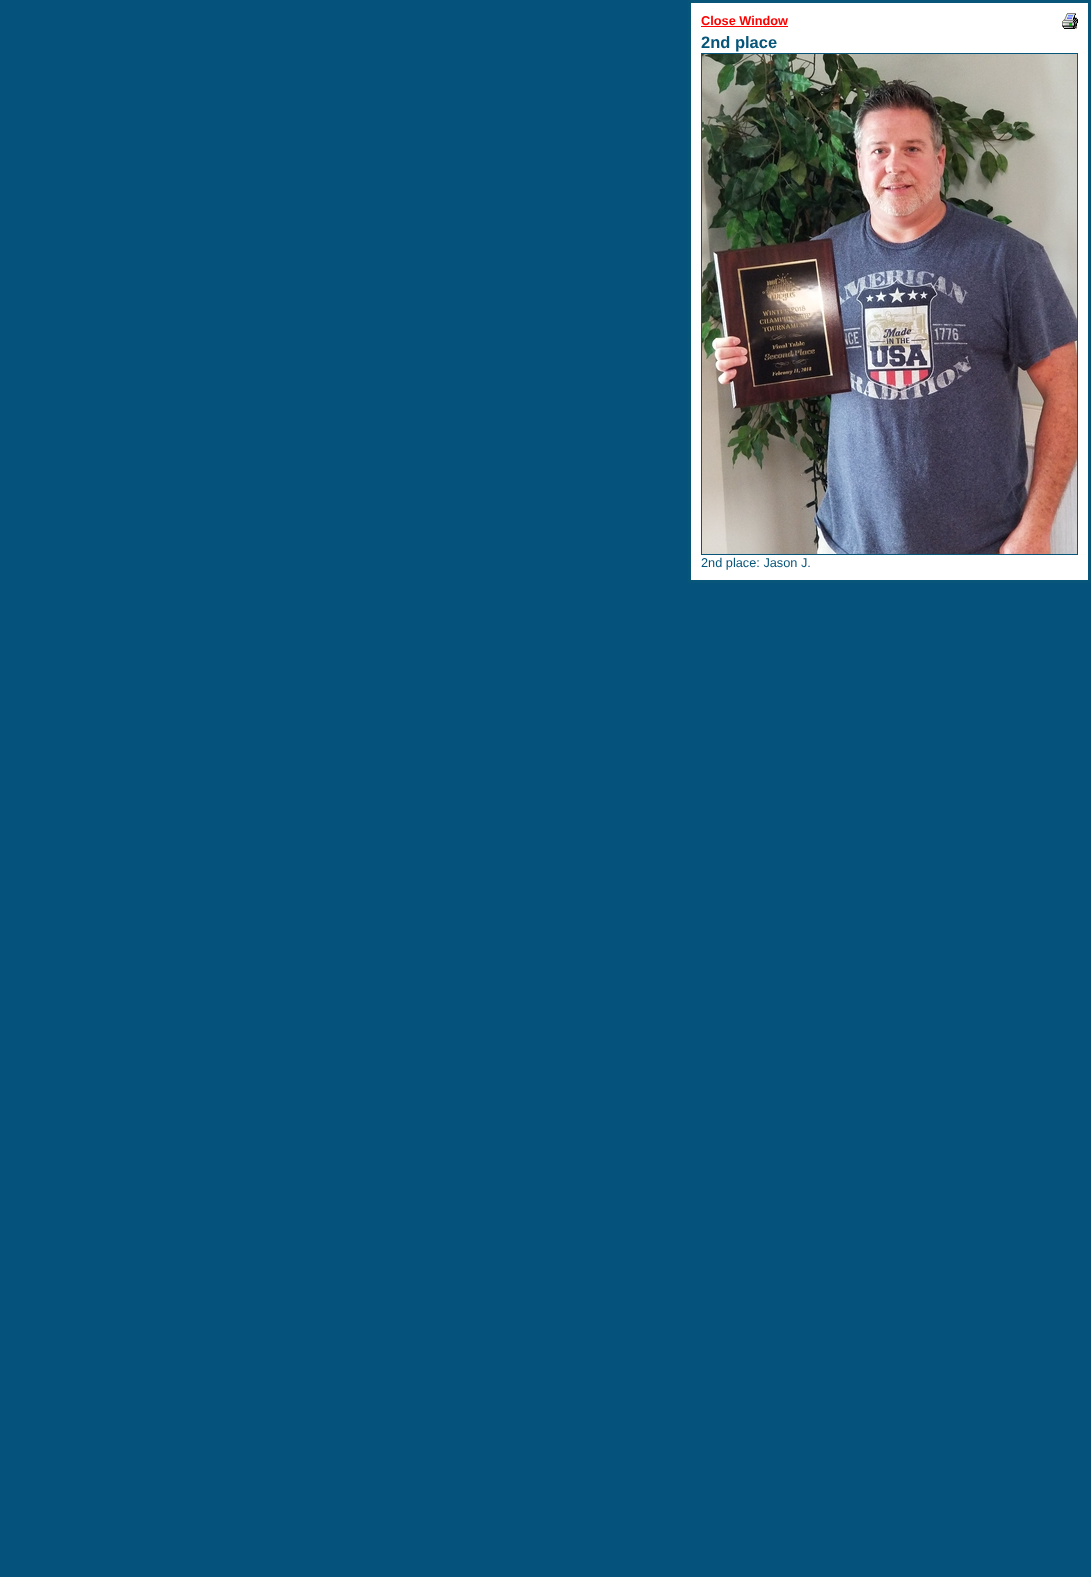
async function draw(canvas) {
  canvas.width = 1091;
  canvas.height = 1577;
  const ctx = canvas.getContext('2d');
  ctx.miterLimit = 4;
  ctx.fontKerning = 'normal';
  function label(s, x, y, font, color) {
    ctx.font = font;
    ctx.fillStyle = color;
    ctx.fillText(s, x, y);
  }
  function rect(x, y, w, h, color) {
    ctx.fillStyle = color;
    ctx.fillRect(x, y, w, h);
  }
  async function image(src, x, y, w, h) {
    const img = new Image();
    img.src = src;
    await img.decode();
    ctx.drawImage(img, x, y, w, h);
  }

  rect(0, 0, 1091, 1577, '#05537c');
  ctx.fillStyle = '#fff';
  ctx.beginPath();
  ctx.rect(689.5, 1.5, 400, 580);
  ctx.fill();
  ctx.strokeStyle = '#075579';
  ctx.lineWidth = 3;
  ctx.stroke();
  label('Close Window', 701, 25, 'bold 12.75px Liberation Sans', '#f00');
  rect(701, 26, 87, 1, '#f00');
  await image('assets/img1.png', 1062, 13, 16, 16);
  label('2nd place', 701, 48, 'bold 16.5px Liberation Sans', '#075579');
  ctx.lineWidth = 1;
  ctx.strokeRect(701.5, 53.5, 376, 501);
  await image('assets/img2.png', 702, 54, 375, 500);
  label('2nd place: Jason J.', 701, 567, '12.75px Liberation Sans', '#075579');
}

draw(document.querySelector('canvas'));
